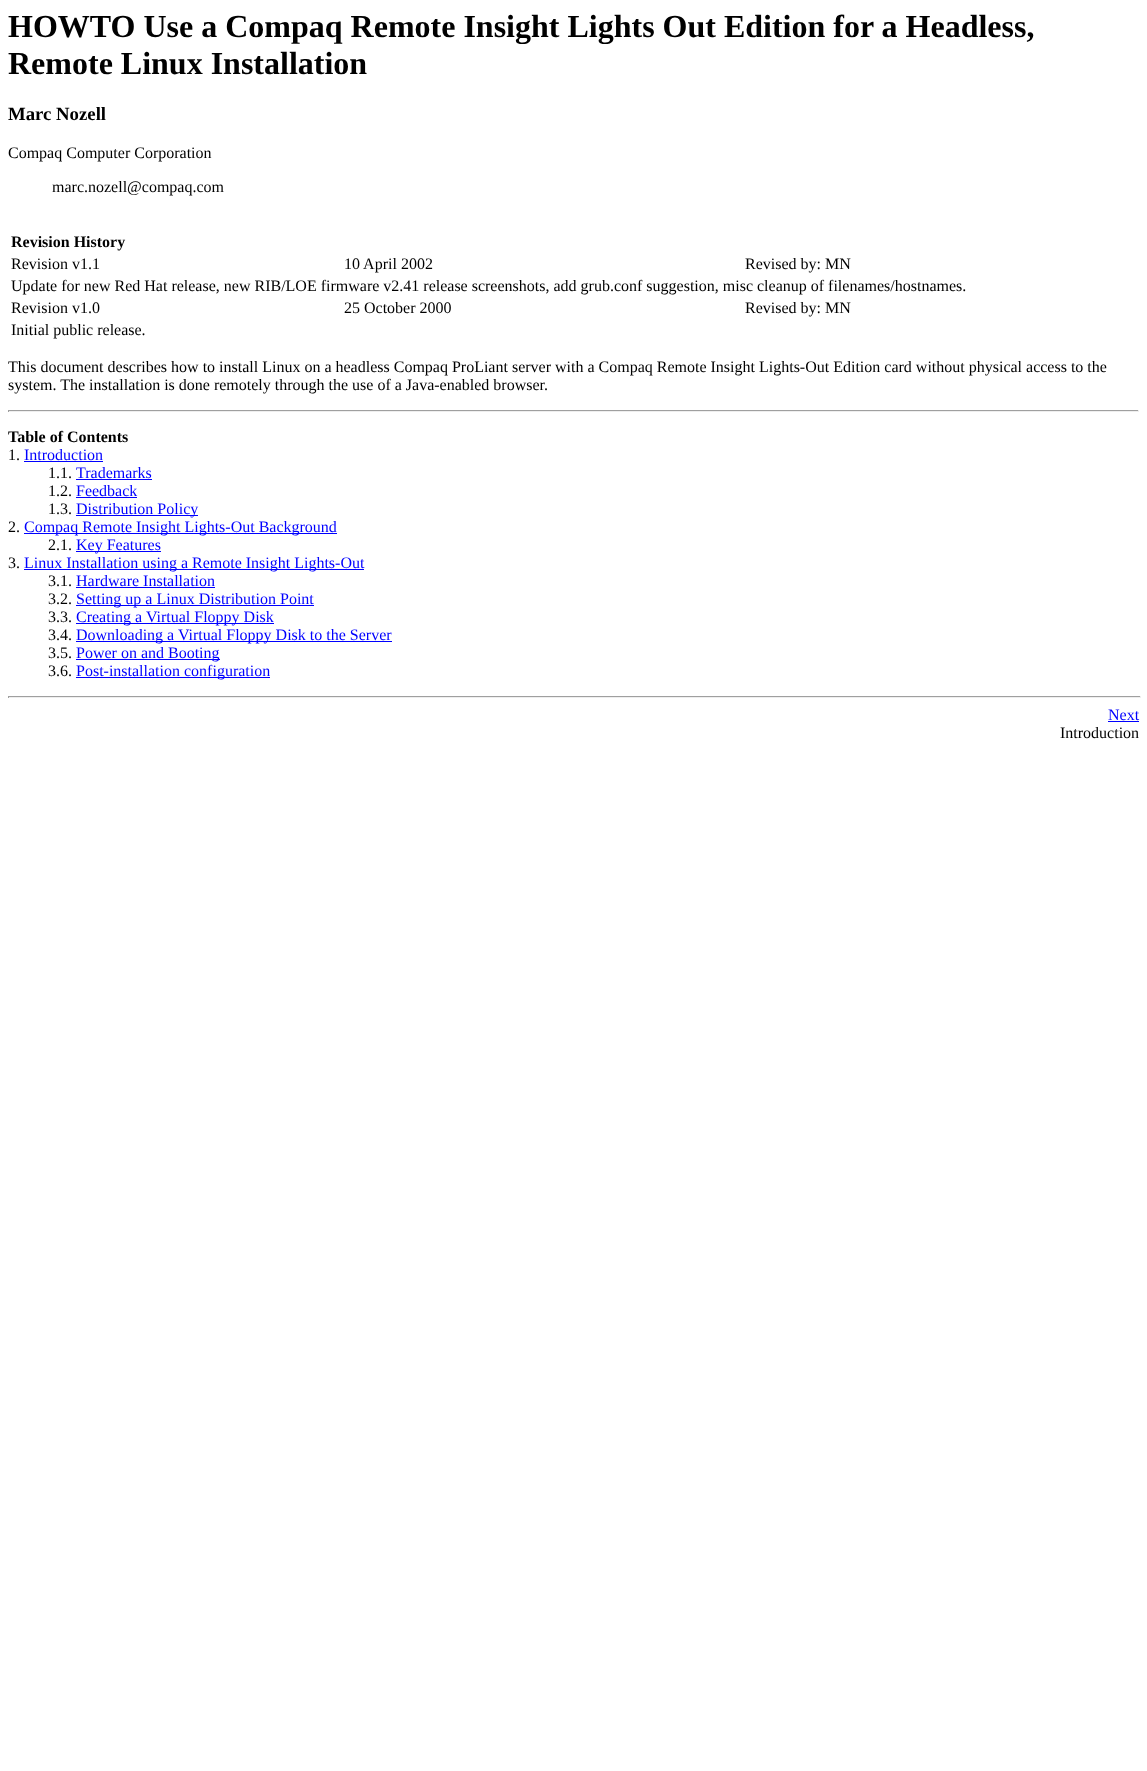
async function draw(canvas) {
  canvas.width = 1147;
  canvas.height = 1771;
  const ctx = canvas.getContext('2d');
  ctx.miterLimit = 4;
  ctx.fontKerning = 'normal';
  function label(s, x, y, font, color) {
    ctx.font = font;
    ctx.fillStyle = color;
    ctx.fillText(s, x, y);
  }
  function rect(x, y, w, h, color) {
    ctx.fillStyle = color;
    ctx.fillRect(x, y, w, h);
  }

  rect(0, 0, 1147, 1771, '#fff');
  label('HOWTO Use a Compaq Remote Insight Lights Out Edition for a Headless,', 8, 37, 'bold 32px Liberation Serif', '#000');
  label('Remote Linux Installation', 8, 74, 'bold 32px Liberation Serif', '#000');
  label('Marc Nozell', 8, 120, 'bold 18.75px Liberation Serif', '#000');
  label('Compaq Computer Corporation', 8, 158, '16px Liberation Serif', '#000');
  label('marc.nozell@compaq.com', 52, 192, '16px Liberation Serif', '#000');
  label('Revision History', 11, 247, 'bold 16px Liberation Serif', '#000');
  label('Revision v1.1', 11, 269, '16px Liberation Serif', '#000');
  label('10 April 2002', 344, 269, '16px Liberation Serif', '#000');
  label('Revised by: MN', 745, 269, '16px Liberation Serif', '#000');
  label('Update for new Red Hat release, new RIB/LOE firmware v2.41 release screenshots, add grub.conf suggestion, misc cleanup of filenames/hostnames.', 11, 291, '16px Liberation Serif', '#000');
  label('Revision v1.0', 11, 313, '16px Liberation Serif', '#000');
  label('25 October 2000', 344, 313, '16px Liberation Serif', '#000');
  label('Revised by: MN', 745, 313, '16px Liberation Serif', '#000');
  label('Initial public release.', 11, 335, '16px Liberation Serif', '#000');
  label('This document describes how to install Linux on a headless Compaq ProLiant server with a Compaq Remote Insight Lights-Out Edition card without physical access to the', 8, 372, '16px Liberation Serif', '#000');
  label('system. The installation is done remotely through the use of a Java-enabled browser.', 8, 390, '16px Liberation Serif', '#000');
  rect(8, 410, 1131, 1, '#9f9f9f');
  rect(1138, 410, 1, 2, '#eee');
  rect(8, 411, 1131, 1, '#eee');
  rect(8, 410, 1, 2, '#9f9f9f');
  label('Table of Contents', 8, 442, 'bold 16px Liberation Serif', '#000');
  label('1.', 8, 460, '16px Liberation Serif', '#000');
  label('Introduction', 24, 460, '16px Liberation Serif', '#00f');
  rect(24, 461, 79, 1, '#00f');
  label('1.1.', 48, 478, '16px Liberation Serif', '#000');
  label('Trademarks', 76, 478, '16px Liberation Serif', '#00f');
  rect(76, 479, 76, 1, '#00f');
  label('1.2.', 48, 496, '16px Liberation Serif', '#000');
  label('Feedback', 76, 496, '16px Liberation Serif', '#00f');
  rect(76, 497, 61, 1, '#00f');
  label('1.3.', 48, 514, '16px Liberation Serif', '#000');
  rect(76, 515, 122, 1, '#00f');
  label('Distribution Policy', 76, 514, '16px Liberation Serif', '#00f');
  label('2.', 8, 532, '16px Liberation Serif', '#000');
  rect(24, 533, 313, 1, '#00f');
  label('Compaq Remote Insight Lights-Out Background', 24, 532, '16px Liberation Serif', '#00f');
  label('2.1.', 48, 550, '16px Liberation Serif', '#000');
  rect(76, 551, 85, 1, '#00f');
  label('Key Features', 76, 550, '16px Liberation Serif', '#00f');
  label('3.', 8, 568, '16px Liberation Serif', '#000');
  rect(24, 569, 340, 1, '#00f');
  label('Linux Installation using a Remote Insight Lights-Out', 24, 568, '16px Liberation Serif', '#00f');
  label('3.1.', 48, 586, '16px Liberation Serif', '#000');
  label('Hardware Installation', 76, 586, '16px Liberation Serif', '#00f');
  rect(76, 587, 139, 1, '#00f');
  label('3.2.', 48, 604, '16px Liberation Serif', '#000');
  rect(76, 605, 238, 1, '#00f');
  label('Setting up a Linux Distribution Point', 76, 604, '16px Liberation Serif', '#00f');
  label('3.3.', 48, 622, '16px Liberation Serif', '#000');
  rect(76, 623, 198, 1, '#00f');
  label('Creating a Virtual Floppy Disk', 76, 622, '16px Liberation Serif', '#00f');
  label('3.4.', 48, 640, '16px Liberation Serif', '#000');
  rect(76, 641, 316, 1, '#00f');
  label('Downloading a Virtual Floppy Disk to the Server', 76, 640, '16px Liberation Serif', '#00f');
  label('3.5.', 48, 658, '16px Liberation Serif', '#000');
  rect(76, 659, 144, 1, '#00f');
  label('Power on and Booting', 76, 658, '16px Liberation Serif', '#00f');
  label('3.6.', 48, 676, '16px Liberation Serif', '#000');
  rect(76, 677, 194, 1, '#00f');
  label('Post-installation configuration', 76, 676, '16px Liberation Serif', '#00f');
  rect(8, 696, 1133, 1, '#9f9f9f');
  rect(1140, 696, 1, 2, '#eee');
  rect(8, 697, 1133, 1, '#eee');
  rect(8, 696, 1, 2, '#9f9f9f');
  label('Next', 1108, 720, '16px Liberation Serif', '#00f');
  rect(1108, 721, 31, 1, '#00f');
  label('Introduction', 1060, 738, '16px Liberation Serif', '#000');
}

draw(document.querySelector('canvas'));
